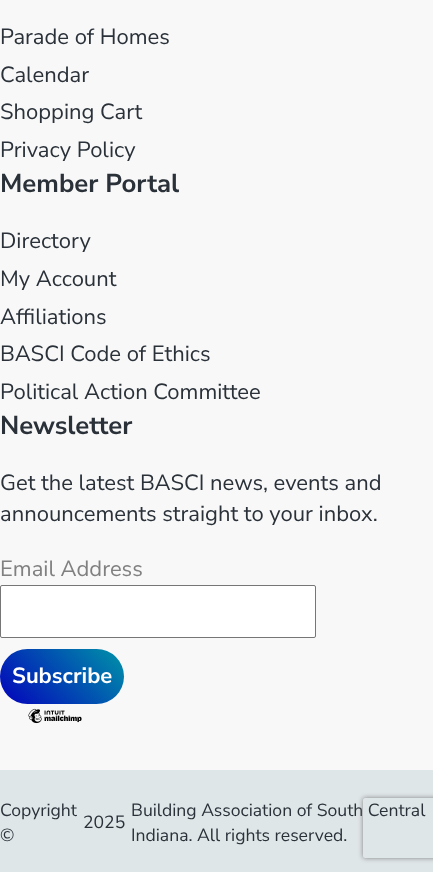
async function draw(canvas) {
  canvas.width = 433;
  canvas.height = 872;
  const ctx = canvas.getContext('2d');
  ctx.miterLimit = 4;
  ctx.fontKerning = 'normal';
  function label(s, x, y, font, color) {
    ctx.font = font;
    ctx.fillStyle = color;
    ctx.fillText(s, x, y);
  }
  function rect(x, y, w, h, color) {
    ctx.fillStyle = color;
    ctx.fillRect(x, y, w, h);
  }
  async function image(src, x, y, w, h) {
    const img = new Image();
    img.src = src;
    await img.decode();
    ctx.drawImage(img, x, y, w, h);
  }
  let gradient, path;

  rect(0, 0, 433, 872, '#f8f8f8');
  label('Parade of Homes', 0, 44, '200 22px "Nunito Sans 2"', '#2a3139');
  label('Calendar', 0, 82, '200 22px "Nunito Sans 2"', '#2a3139');
  label('Shopping Cart', 0, 119, '200 22px "Nunito Sans 2"', '#2a3139');
  label('Privacy Policy', 0, 157, '200 22px "Nunito Sans 2"', '#2a3139');
  label('Member Portal', 0, 192, '200 25.75px Nunito Sans', '#2a3139');
  label('Directory', 0, 248, '200 22px "Nunito Sans 2"', '#2a3139');
  label('My Account', 0, 286, '200 22px "Nunito Sans 2"', '#2a3139');
  label('Affiliations', 0, 324, '200 22px "Nunito Sans 2"', '#2a3139');
  label('BASCI Code of Ethics', 0, 361, '200 22px "Nunito Sans 2"', '#2a3139');
  label('Political Action Committee', 0, 399, '200 22px "Nunito Sans 2"', '#2a3139');
  label('Newsletter', 0, 434, '200 25.75px Nunito Sans', '#2a3139');
  label('Get the latest BASCI news, events and', 0, 490, '200 22px "Nunito Sans 2"', '#2a3139');
  label('announcements straight to your inbox.', 0, 521, '200 22px "Nunito Sans 2"', '#2a3139');
  label('Email Address', 0, 576, '200 22px "Nunito Sans 2"', '#808080');
  ctx.fillStyle = '#fff';
  ctx.beginPath();
  ctx.roundRect(0.5, 585.5, 315, 52, 1.5);
  ctx.fill();
  ctx.strokeStyle = '#767676';
  ctx.stroke();
  gradient = ctx.createLinearGradient(17, 721, 107, 632);
  gradient.addColorStop(0, '#0302bb');
  gradient.addColorStop(1, '#0094a8');
  ctx.fillStyle = gradient;
  ctx.beginPath();
  ctx.roundRect(0, 649, 124, 55, 27.5);
  ctx.fill();
  label('Subscribe', 12, 683, '200 22px Nunito Sans', '#fff');
  await image('assets/img1.png', 28, 708, 54, 16);
  rect(0, 770, 433, 102, '#dfe6e8');
  label('Copyright', 0, 816, '200 17.6px "Nunito Sans 2"', '#2a3139');
  label('©', 0, 841, '200 17.6px "Nunito Sans 2"', '#2a3139');
  label('2025', 83, 828, '200 17.6px "Nunito Sans 2"', '#2a3139');
  label('Building Association of South Central', 131, 816, '200 17.6px "Nunito Sans 2"', '#2a3139');
  label('Indiana. All rights reserved.', 131, 841, '200 17.6px "Nunito Sans 2"', '#2a3139');
  ctx.save();
  path = new Path2D('M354 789H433V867H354ZM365 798H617C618 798 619 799 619 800V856C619 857 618 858 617 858H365C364 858 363 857 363 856V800C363 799 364 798 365 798Z');
  ctx.clip(path, 'evenodd');
  ctx.fillStyle = '#808080';
  ctx.filter = 'blur(2.5px)';
  ctx.beginPath();
  ctx.roundRect(363, 798, 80, 60, 2);
  ctx.fill();
  ctx.filter = 'none';
  ctx.restore();
}

draw(document.querySelector('canvas'));
